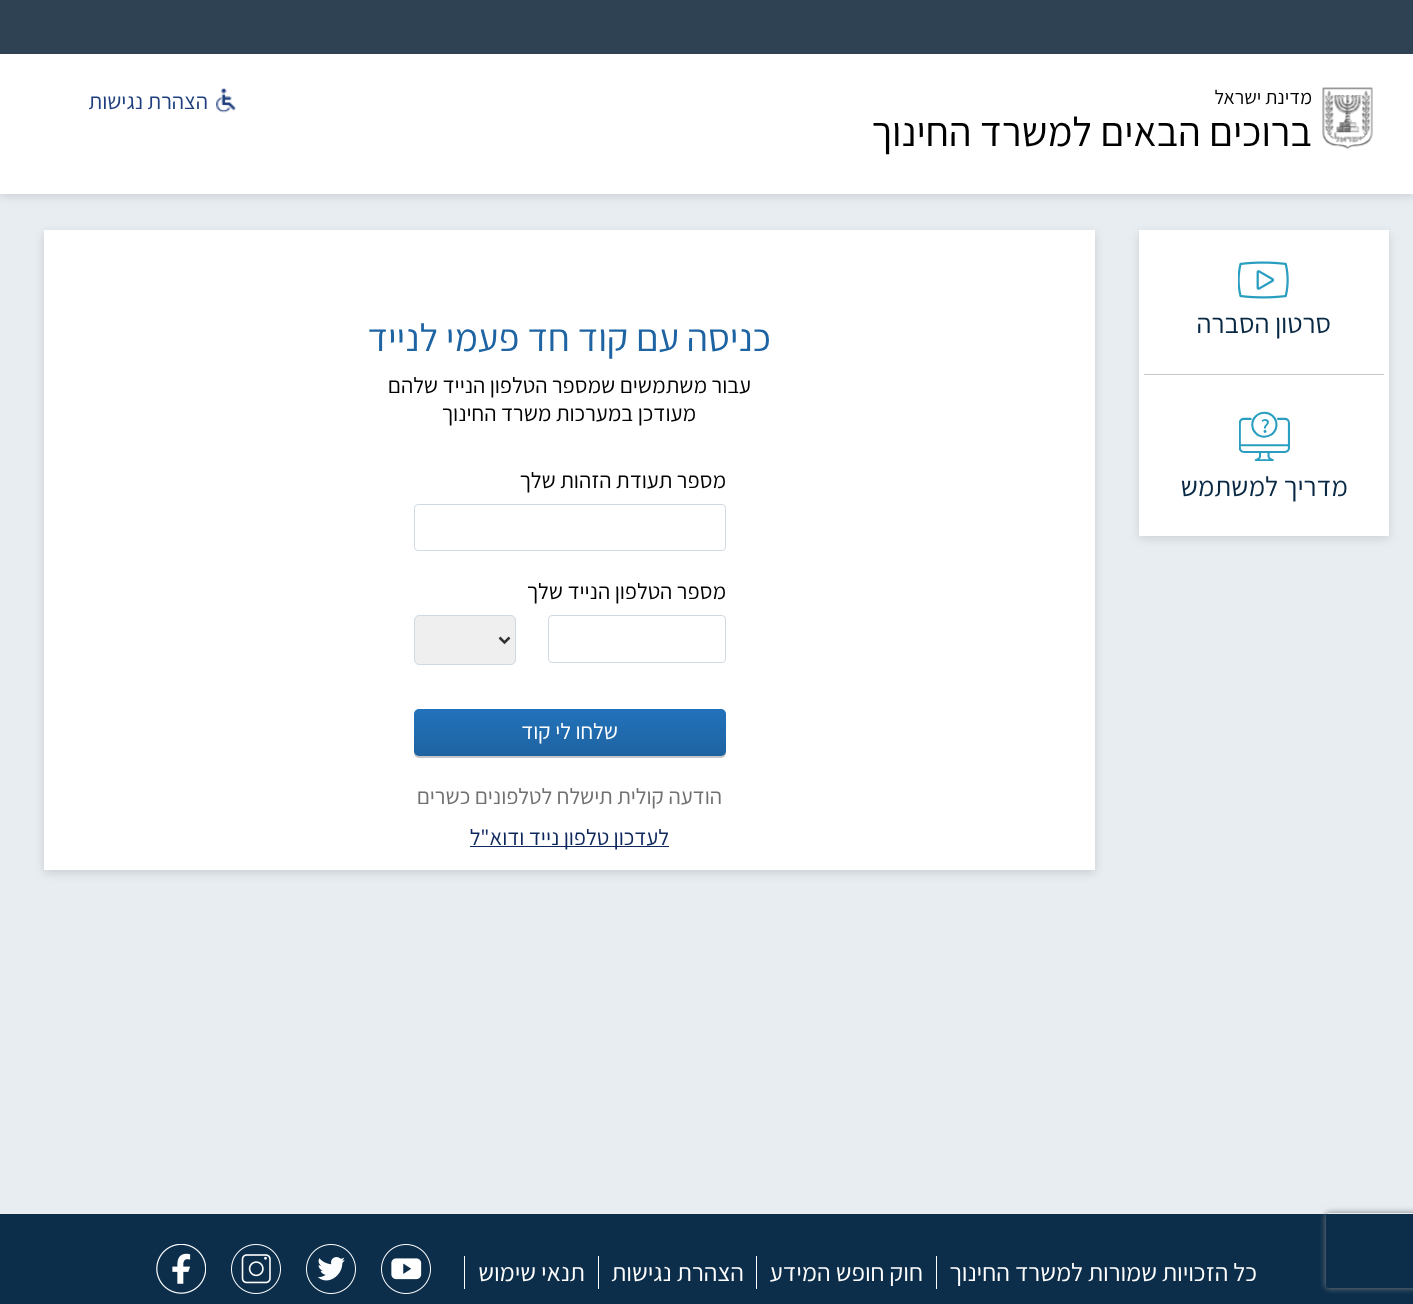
async function draw(canvas) {
  canvas.width = 1413;
  canvas.height = 1304;
  const ctx = canvas.getContext('2d');
  ctx.miterLimit = 4;
  ctx.fontKerning = 'normal';
  function label(s, x, y, font, color) {
    ctx.font = font;
    ctx.fillStyle = color;
    ctx.fillText(s, x, y);
  }
  function rect(x, y, w, h, color) {
    ctx.fillStyle = color;
    ctx.fillRect(x, y, w, h);
  }
  async function image(src, x, y, w, h) {
    const img = new Image();
    img.src = src;
    await img.decode();
    ctx.drawImage(img, x, y, w, h);
  }
  let gradient, path;

  rect(0, 0, 1413, 1304, '#e8edf2');
  ctx.fillStyle = '#00000021';
  ctx.filter = 'blur(5px)';
  ctx.beginPath();
  ctx.rect(0, 3, 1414, 193);
  ctx.fill();
  ctx.filter = 'none';
  rect(0, 54, 1413, 140, '#fff');
  rect(0, 0, 1413, 54, '#2e4254');
  await image('assets/img1.png', 1322, 87, 51, 62);
  ctx.direction = 'rtl';
  label('מדינת ישראל', 1312, 104, '20px Assistant', '#000');
  label('ברוכים הבאים למשרד החינוך', 1312, 146, '41.25px Assistant', '#000');
  await image('assets/img2.png', 216, 88, 20, 25);
  label('הצהרת נגישות', 208, 109, '22.5px Assistant', '#1f3e7e');
  ctx.fillStyle = '#0000001c';
  ctx.filter = 'blur(5px)';
  ctx.beginPath();
  ctx.rect(1139, 233, 250, 306);
  ctx.fill();
  ctx.filter = 'none';
  rect(1139, 230, 250, 306, '#fff');
  rect(1144, 374, 240, 1, '#c6c6c6');
  await image('assets/img3.png', 1238, 261, 51, 38);
  label('סרטון הסברה', 1331, 333, '27.5px Assistant', '#092843');
  await image('assets/img4.png', 1239, 411, 51, 50);
  label('מדריך למשתמש', 1348, 496, '27.5px Assistant', '#092843');
  ctx.fillStyle = '#00000021';
  ctx.filter = 'blur(5px)';
  ctx.beginPath();
  ctx.rect(44, 233, 1051, 640);
  ctx.fill();
  ctx.filter = 'none';
  rect(44, 230, 1051, 640, '#fff');
  label('כניסה עם קוד חד פעמי לנייד', 771, 351, '38.75px Assistant', '#1e64a3');
  label('עבור משתמשים שמספר הטלפון הנייד שלהם', 751, 393, '22.5px Assistant', '#000');
  label('מעודכן במערכות משרד החינוך', 696, 421, '22.5px Assistant', '#000');
  label('מספר תעודת הזהות שלך', 726, 488, '22.5px Assistant', '#000');
  ctx.beginPath();
  ctx.roundRect(414.5, 504.5, 311, 46, 3.5);
  ctx.strokeStyle = '#d1dae2';
  ctx.stroke();
  label('מספר הטלפון הנייד שלך', 726, 599, '22.5px Assistant', '#000');
  ctx.beginPath();
  ctx.roundRect(548.5, 615.5, 177, 47, 3.5);
  ctx.stroke();
  ctx.fillStyle = '#efefef';
  ctx.beginPath();
  ctx.roundRect(414.5, 615.5, 101, 49, 4.5);
  ctx.fill();
  ctx.stroke();
  path = new Path2D('M499.5 637.5L504.5 642.5L509.5 637.5');
  ctx.strokeStyle = '#333';
  ctx.lineWidth = 2.5;
  ctx.stroke(path);
  ctx.fillStyle = '#161d2540';
  ctx.filter = 'blur(0.5px)';
  ctx.beginPath();
  ctx.roundRect(414, 710, 312, 48, 5);
  ctx.fill();
  ctx.filter = 'none';
  gradient = ctx.createLinearGradient(570, 709, 570, 756);
  gradient.addColorStop(0, '#2272bb');
  gradient.addColorStop(1, '#1e63a1');
  ctx.fillStyle = gradient;
  ctx.beginPath();
  ctx.roundRect(414, 709, 312, 47, 5);
  ctx.fill();
  label('שלחו לי קוד', 618, 739, '22.5px Assistant', '#fff');
  label('הודעה קולית תישלח לטלפונים כשרים', 722, 804, '22.5px Assistant', '#707070');
  rect(0, 1214, 1413, 90, '#0c2e4b');
  ctx.save();
  path = new Path2D('M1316 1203H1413V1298H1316ZM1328.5 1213H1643.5C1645 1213 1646 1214 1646 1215.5V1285.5C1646 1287 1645 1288 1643.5 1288H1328.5C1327 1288 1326 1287 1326 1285.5V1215.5C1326 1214 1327 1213 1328.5 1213Z');
  ctx.clip(path, 'evenodd');
  ctx.fillStyle = '#808080';
  ctx.filter = 'blur(3px)';
  ctx.beginPath();
  ctx.roundRect(1326, 1213, 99, 75, 2.5);
  ctx.fill();
  ctx.filter = 'none';
  ctx.restore();
  rect(470, 846, 199, 1, '#0d275d');
  label('לעדכון טלפון נייד ודוא"ל', 669, 845, '22.5px Assistant', '#0d275d');
  rect(936, 1256, 1, 33, '#fff');
  label('כל הזכויות שמורות למשרד החינוך', 1257, 1281, '25px Assistant', '#fff');
  rect(756, 1256, 1, 33, '#fff');
  label('חוק חופש המידע', 923, 1281, '25px Assistant', '#fff');
  rect(598, 1256, 1, 33, '#fff');
  label('הצהרת נגישות', 744, 1281, '25px Assistant', '#fff');
  rect(464, 1256, 1, 33, '#fff');
  label('תנאי שימוש', 585, 1281, '25px Assistant', '#fff');
  await image('assets/img5.png', 381, 1244, 50, 50);
  await image('assets/img6.png', 306, 1244, 50, 50);
  await image('assets/img7.png', 231, 1244, 50, 50);
  await image('assets/img8.png', 156, 1244, 50, 50);
}

draw(document.querySelector('canvas'));
